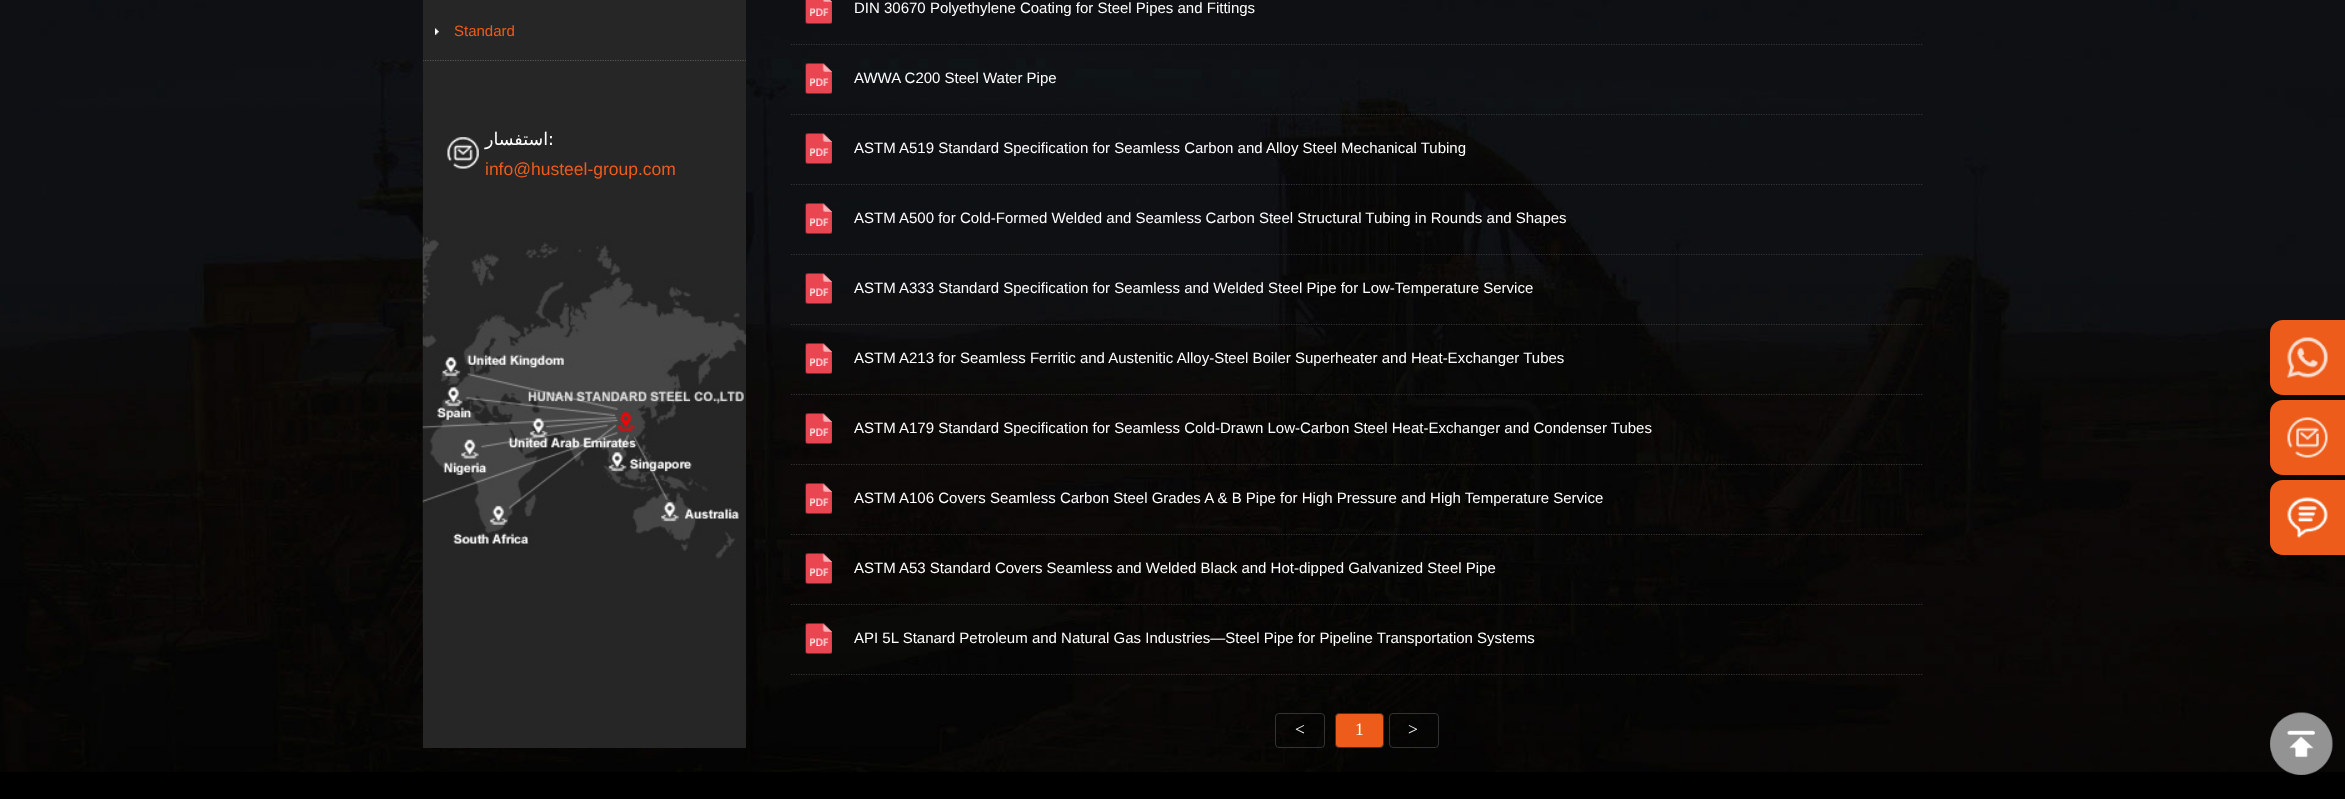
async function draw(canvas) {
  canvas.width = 2345;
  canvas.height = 799;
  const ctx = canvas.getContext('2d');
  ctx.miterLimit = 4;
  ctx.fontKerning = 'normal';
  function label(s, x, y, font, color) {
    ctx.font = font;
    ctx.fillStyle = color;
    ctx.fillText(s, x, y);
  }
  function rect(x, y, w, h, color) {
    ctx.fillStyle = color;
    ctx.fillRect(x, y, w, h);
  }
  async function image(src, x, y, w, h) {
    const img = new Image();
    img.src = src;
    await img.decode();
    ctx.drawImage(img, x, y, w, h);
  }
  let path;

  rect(0, 0, 2345, 799, '#000');
  await image('assets/img1.png', 0, 0, 2345, 772);
  rect(423, 0, 323, 748, '#262626');
  await image('assets/img2.png', 435, 28, 4, 7);
  ctx.save();
  ctx.beginPath();
  ctx.rect(423, 4, 323, 57);
  ctx.clip();
  path = new Path2D('M422.5 60.5H746');
  ctx.strokeStyle = '#555';
  ctx.lineWidth = 1.2;
  ctx.setLineDash([1.25, 1.25]);
  ctx.stroke(path);
  ctx.restore();
  label('Standard', 454, 36, '15px Liberation Sans', '#ed5c1b');
  await image('assets/img3.png', 447, 137, 32, 32);
  ctx.direction = 'rtl';
  label('استفسار', 548, 145, '17.5px DejaVu Sans', '#fff');
  ctx.direction = 'ltr';
  label(':', 548, 145, '17.5px DejaVu Sans', '#fff');
  label('info@husteel-group.com', 485, 175, '17.5px Liberation Sans', '#ed5c1b');
  await image('assets/img4.png', 422, 209, 324, 429);
  await image('assets/img5.png', 805, 0, 27, 24);
  path = new Path2D('M791 44.5H1922.5');
  ctx.strokeStyle = '#333';
  ctx.lineWidth = 1.2;
  ctx.setLineDash([1.25, 1.25]);
  ctx.stroke(path);
  label('DIN 30670 Polyethylene Coating for Steel Pipes and Fittings', 854, 13, '15px Liberation Sans', '#fff');
  await image('assets/img6.png', 805, 63, 27, 31);
  path = new Path2D('M791 114.5H1922.5');
  ctx.stroke(path);
  label('AWWA C200 Steel Water Pipe', 854, 83, '15px Liberation Sans', '#fff');
  await image('assets/img7.png', 805, 133, 27, 31);
  path = new Path2D('M791 184.5H1922.5');
  ctx.stroke(path);
  label('ASTM A519 Standard Specification for Seamless Carbon and Alloy Steel Mechanical Tubing', 854, 153, '15px Liberation Sans', '#fff');
  await image('assets/img8.png', 805, 203, 27, 31);
  path = new Path2D('M791 254.5H1922.5');
  ctx.stroke(path);
  label('ASTM A500 for Cold-Formed Welded and Seamless Carbon Steel Structural Tubing in Rounds and Shapes', 854, 223, '15px Liberation Sans', '#fff');
  await image('assets/img9.png', 805, 273, 27, 31);
  path = new Path2D('M791 324.5H1922.5');
  ctx.stroke(path);
  label('ASTM A333 Standard Specification for Seamless and Welded Steel Pipe for Low-Temperature Service', 854, 293, '15px Liberation Sans', '#fff');
  await image('assets/img10.png', 805, 343, 27, 31);
  path = new Path2D('M791 394.5H1922.5');
  ctx.stroke(path);
  label('ASTM A213 for Seamless Ferritic and Austenitic Alloy-Steel Boiler Superheater and Heat-Exchanger Tubes', 854, 363, '15px Liberation Sans', '#fff');
  await image('assets/img11.png', 805, 413, 27, 31);
  path = new Path2D('M791 464.5H1922.5');
  ctx.stroke(path);
  label('ASTM A179 Standard Specification for Seamless Cold-Drawn Low-Carbon Steel Heat-Exchanger and Condenser Tubes', 854, 433, '15px Liberation Sans', '#fff');
  await image('assets/img12.png', 805, 483, 27, 31);
  path = new Path2D('M791 534.5H1922.5');
  ctx.stroke(path);
  label('ASTM A106 Covers Seamless Carbon Steel Grades A & B Pipe for High Pressure and High Temperature Service', 854, 503, '15px Liberation Sans', '#fff');
  await image('assets/img13.png', 805, 553, 27, 31);
  path = new Path2D('M791 604.5H1922.5');
  ctx.stroke(path);
  label('ASTM A53 Standard Covers Seamless and Welded Black and Hot-dipped Galvanized Steel Pipe', 854, 573, '15px Liberation Sans', '#fff');
  await image('assets/img14.png', 805, 623, 27, 31);
  ctx.save();
  ctx.beginPath();
  ctx.rect(791, 0, 1132, 675);
  ctx.clip();
  path = new Path2D('M791 674.5H1922.5');
  ctx.stroke(path);
  ctx.restore();
  label('API 5L Stanard Petroleum and Natural Gas Industries—Steel Pipe for Pipeline Transportation Systems', 854, 643, '15px Liberation Sans', '#fff');
  ctx.beginPath();
  ctx.roundRect(1275.5, 713.5, 49, 34, 3.5);
  ctx.lineWidth = 1;
  ctx.setLineDash([]);
  ctx.stroke();
  label('<', 1295, 735, '17.5px Liberation Serif', '#fff');
  ctx.fillStyle = '#ed5c1b';
  ctx.beginPath();
  ctx.roundRect(1335.5, 713.5, 48, 34, 3.5);
  ctx.fill();
  ctx.stroke();
  label('1', 1355, 735, '17.5px Liberation Serif', '#fff');
  ctx.beginPath();
  ctx.roundRect(1389.5, 713.5, 49, 34, 3.5);
  ctx.stroke();
  label('>', 1408, 735, '17.5px Liberation Serif', '#fff');
  ctx.fillStyle = '#ed5c1b';
  ctx.beginPath();
  ctx.roundRect(2270, 320, 75, 75, [13, 0, 0, 13]);
  ctx.fill();
  await image('assets/img15.png', 2287, 337, 41, 41);
  ctx.beginPath();
  ctx.roundRect(2270, 400, 75, 75, [13, 0, 0, 13]);
  ctx.fill();
  await image('assets/img16.png', 2287, 417, 41, 41);
  ctx.beginPath();
  ctx.roundRect(2270, 480, 75, 75, [13, 0, 0, 13]);
  ctx.fill();
  await image('assets/img17.png', 2287, 497, 41, 41);
  await image('assets/img18.png', 2270, 712, 63, 63);
}

draw(document.querySelector('canvas'));
